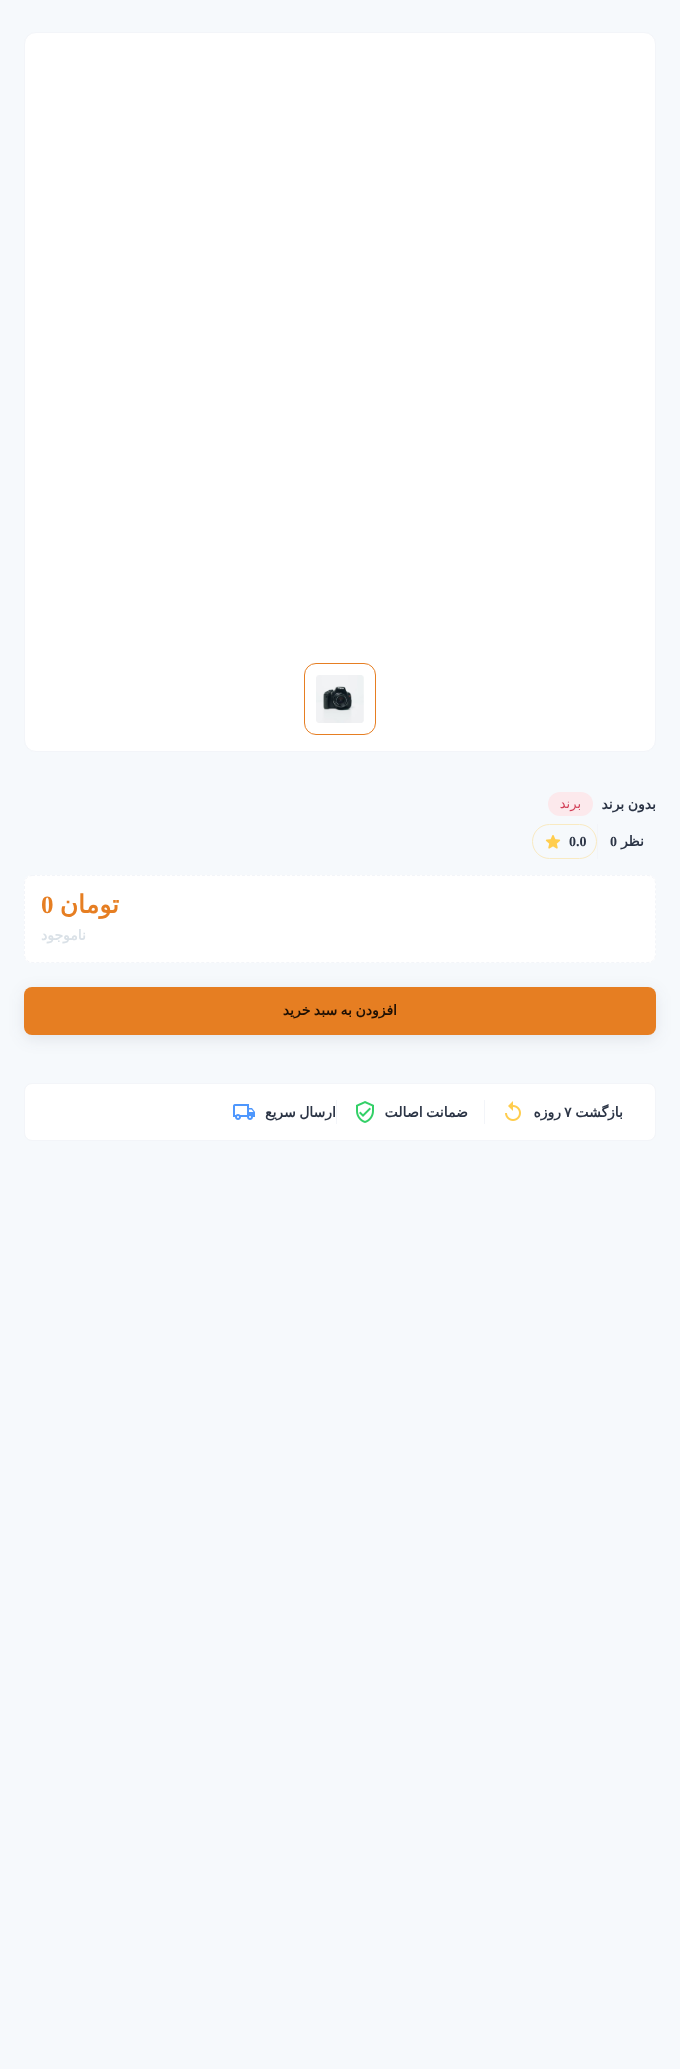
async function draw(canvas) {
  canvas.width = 680;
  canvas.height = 2069;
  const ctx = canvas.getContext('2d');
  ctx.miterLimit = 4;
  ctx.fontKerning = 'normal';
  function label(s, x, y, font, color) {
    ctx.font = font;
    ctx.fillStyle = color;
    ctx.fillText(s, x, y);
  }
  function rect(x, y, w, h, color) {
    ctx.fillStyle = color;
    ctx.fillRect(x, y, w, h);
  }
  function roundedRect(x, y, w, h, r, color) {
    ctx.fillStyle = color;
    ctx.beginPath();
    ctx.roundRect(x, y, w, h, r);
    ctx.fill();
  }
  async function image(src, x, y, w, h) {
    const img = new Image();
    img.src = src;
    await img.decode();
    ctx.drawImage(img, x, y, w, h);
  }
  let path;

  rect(0, 0, 680, 2069, '#f6f9fc');
  ctx.fillStyle = '#fff';
  ctx.beginPath();
  ctx.roundRect(24.5, 32.5, 631, 719, 11.5);
  ctx.fill();
  ctx.strokeStyle = '#f3f5f9';
  ctx.stroke();
  ctx.beginPath();
  ctx.roundRect(304.5, 663.5, 71, 71, 11.5);
  ctx.strokeStyle = '#e67e22';
  ctx.stroke();
  await image('assets/img1.png', 316, 675, 48, 48);
  ctx.wordSpacing = '-1px';
  ctx.direction = 'rtl';
  label('بدون برند', 656, 809, 'bold 14px DejaVu Sans', '#2b3445');
  roundedRect(548, 792, 45, 24, 12, '#fce9ec');
  ctx.wordSpacing = '0px';
  label('برند', 581, 808, '13px DejaVu Sans', '#d23f57');
  label('نظر', 644, 846, 'bold 14px DejaVu Sans', '#2b3445');
  ctx.direction = 'ltr';
  label('0', 610, 846, 'bold 14px Liberation Serif', '#2b3445');
  rect(597, 824, 1, 35, '#f3f5f9');
  ctx.beginPath();
  ctx.roundRect(532.5, 824.5, 64, 34, 17);
  ctx.strokeStyle = '#f9eac2';
  ctx.stroke();
  label('0.0', 569, 846, 'bold 14px Liberation Serif', '#2b3445');
  await image('assets/img2.png', 545, 835, 16, 14);
  roundedRect(24, 875, 632, 88, 8, '#fff');
  path = new Path2D('M32 875.5H648C652 875.5 655.5 879 655.5 883V955C655.5 959 652 962.5 648 962.5H32C28 962.5 24.5 959 24.5 955V883C24.5 879 28 875.5 32 875.5Z');
  ctx.strokeStyle = '#f3f5f9';
  ctx.setLineDash([3, 2]);
  ctx.stroke(path);
  ctx.direction = 'rtl';
  label('تومان', 119, 913, 'bold 25px DejaVu Sans', '#e67e22');
  ctx.direction = 'ltr';
  label('0', 41, 913, 'bold 25px Liberation Serif', '#e67e22');
  ctx.direction = 'rtl';
  label('ناموجود', 86, 940, 'bold 14px DejaVu Sans', '#dae1e7');
  ctx.fillStyle = '#2b34451a';
  ctx.filter = 'blur(8px)';
  ctx.beginPath();
  ctx.roundRect(24, 991, 632, 48, 8);
  ctx.fill();
  ctx.filter = 'none';
  roundedRect(24, 987, 632, 48, 8, '#e67e22');
  ctx.wordSpacing = '-1px';
  label('افزودن به سبد خرید', 397, 1015, 'bold 14px DejaVu Sans', '#1e1004');
  ctx.fillStyle = '#fff';
  ctx.beginPath();
  ctx.roundRect(24.5, 1083.5, 631, 57, 7.5);
  ctx.fill();
  ctx.setLineDash([]);
  ctx.stroke();
  ctx.wordSpacing = '0px';
  label('بازگشت', 623, 1117, 'bold 14px DejaVu Sans', '#2b3445');
  ctx.direction = 'ltr';
  label('۷', 564, 1117, 'bold 14px DejaVu Sans', '#2b3445');
  ctx.direction = 'rtl';
  label('روزه', 561, 1117, 'bold 14px DejaVu Sans', '#2b3445');
  await image('assets/img3.png', 505, 1101, 16, 20);
  rect(484, 1100, 1, 24, '#f3f5f9');
  ctx.wordSpacing = '-1px';
  label('ضمانت اصالت', 468, 1117, 'bold 14px DejaVu Sans', '#2b3445');
  await image('assets/img4.png', 356, 1101, 18, 22);
  rect(336, 1100, 1, 24, '#f3f5f9');
  label('ارسال سریع', 336, 1117, 'bold 14px DejaVu Sans', '#2b3445');
  await image('assets/img5.png', 233, 1104, 22, 16);
}

draw(document.querySelector('canvas'));
